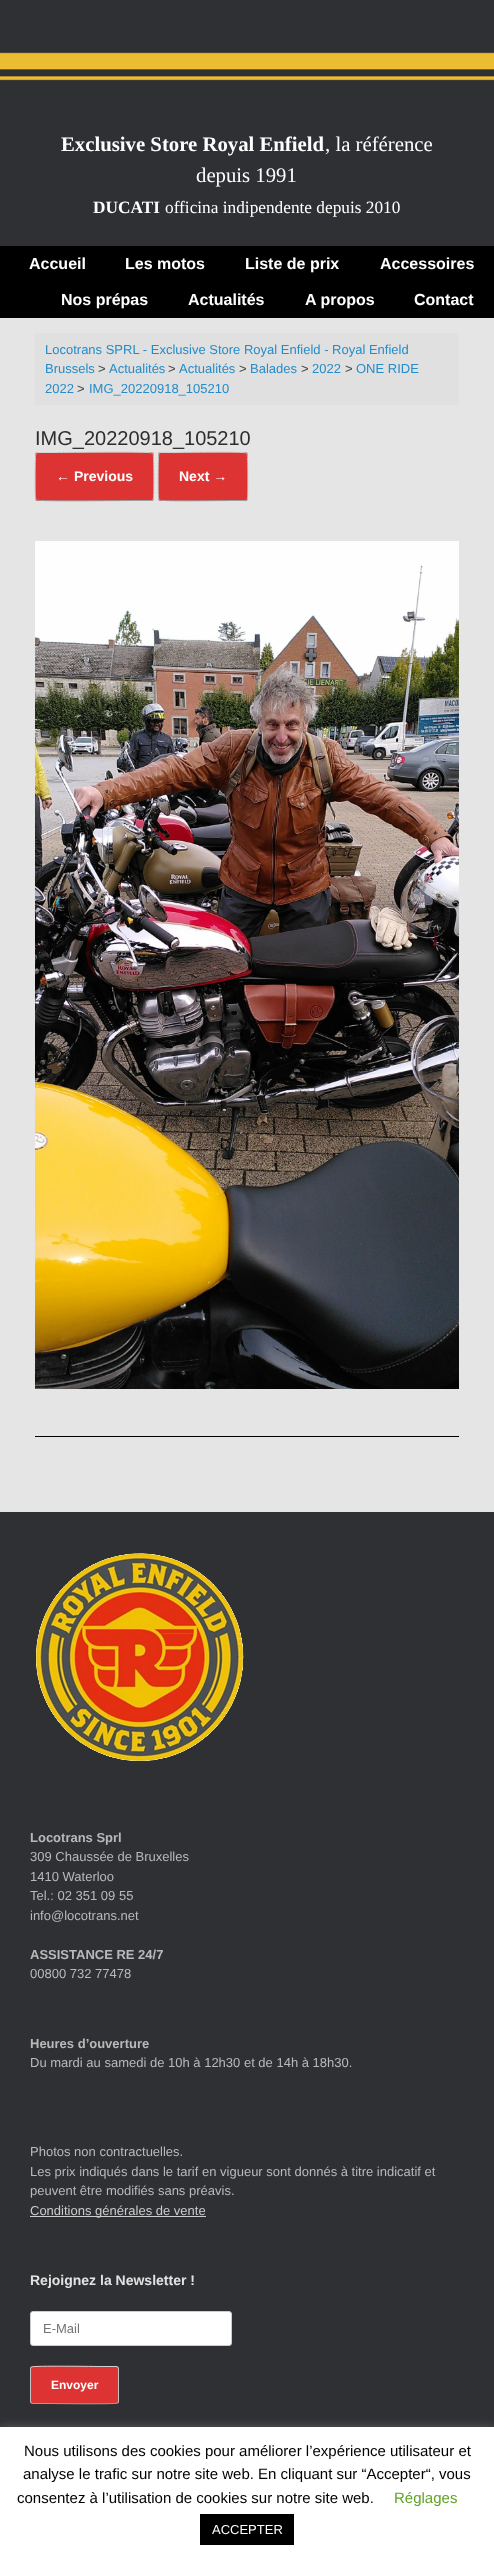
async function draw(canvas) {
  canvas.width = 494;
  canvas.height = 2562;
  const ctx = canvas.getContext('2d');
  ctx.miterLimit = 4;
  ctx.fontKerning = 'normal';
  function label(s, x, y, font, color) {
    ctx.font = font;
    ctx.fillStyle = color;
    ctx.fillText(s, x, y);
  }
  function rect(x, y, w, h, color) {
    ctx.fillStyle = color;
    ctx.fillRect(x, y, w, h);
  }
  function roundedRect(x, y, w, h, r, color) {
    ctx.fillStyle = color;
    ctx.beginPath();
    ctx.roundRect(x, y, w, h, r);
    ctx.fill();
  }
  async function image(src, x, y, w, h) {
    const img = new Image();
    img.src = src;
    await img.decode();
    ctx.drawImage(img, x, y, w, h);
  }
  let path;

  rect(0, 0, 494, 2562, '#2f3033');
  await image('assets/img1.png', 0, 52, 494, 29);
  label('Exclusive Store Royal Enfield', 61, 151, 'bold 20.75px Liberation Serif', '#fff');
  label(', la référence', 325, 151, '20.75px Liberation Serif', '#fff');
  label('depuis 1991', 196, 182, '20.75px Liberation Serif', '#fff');
  label('DUCATI', 93, 213, 'bold 17.3px Liberation Serif', '#fff');
  label('officina indipendente depuis 2010', 165, 213, '17.3px Liberation Serif', '#fff');
  rect(0, 246, 494, 72, '#000');
  label('Accueil', 29, 269, 'bold 16px Liberation Sans', '#fff');
  label('Les motos', 125, 269, 'bold 16px Liberation Sans', '#fff');
  label('Liste de prix', 245, 269, 'bold 16px Liberation Sans', '#fff');
  label('Accessoires', 380, 269, 'bold 16px Liberation Sans', '#fff');
  label('Nos prépas', 61, 305, 'bold 16px Liberation Sans', '#fff');
  label('Actualités', 188, 305, 'bold 16px Liberation Sans', '#fff');
  label('A propos', 305, 305, 'bold 16px Liberation Sans', '#fff');
  label('Contact', 414, 305, 'bold 16px Liberation Sans', '#fff');
  rect(0, 318, 494, 1194, '#e5e5e5');
  rect(35, 333, 424, 72, '#e0e0e0');
  label('Locotrans SPRL - Exclusive Store Royal Enfield - Royal Enfield', 45, 354, '13px Liberation Sans', '#248cc8');
  label('Brussels', 45, 373, '13px Liberation Sans', '#248cc8');
  label('>', 98, 373, '13px Liberation Sans', '#474747');
  label('Actualités', 109, 373, '13px Liberation Sans', '#248cc8');
  label('>', 168, 373, '13px Liberation Sans', '#474747');
  label('Actualités', 179, 373, '13px Liberation Sans', '#248cc8');
  label('>', 239, 373, '13px Liberation Sans', '#474747');
  label('Balades', 250, 373, '13px Liberation Sans', '#248cc8');
  label('>', 301, 373, '13px Liberation Sans', '#474747');
  label('2022', 312, 373, '13px Liberation Sans', '#248cc8');
  label('>', 345, 373, '13px Liberation Sans', '#474747');
  label('ONE RIDE', 356, 373, '13px Liberation Sans', '#248cc8');
  label('2022', 45, 393, '13px Liberation Sans', '#248cc8');
  label('>', 77, 393, '13px Liberation Sans', '#474747');
  label('IMG_20220918_105210', 89, 393, '13px Liberation Sans', '#248cc8');
  rect(35, 1436, 424, 1, '#000');
  label('IMG_20220918_105210', 35, 445, '20px Liberation Sans', '#2d2d2d');
  roundedRect(35, 452, 119, 49, 3, '#d33');
  path = new Path2D('M36 453L38 452.5H57C66.5 452.5 150.5 451.5 152.5 453H153');
  ctx.strokeStyle = '#d2d2d2';
  ctx.stroke(path);
  path = new Path2D('M153 453C154 454.5 154 494 153.5 498L153 500');
  ctx.strokeStyle = '#c3c3c3';
  ctx.stroke(path);
  path = new Path2D('M153 500L151 500.5H132C122.5 500.5 38.5 501.5 36.5 500H36');
  ctx.strokeStyle = '#9f9f9f';
  ctx.stroke(path);
  path = new Path2D('M36 500L35.5 498C35 494 35 454.5 36 453');
  ctx.strokeStyle = '#c3c3c3';
  ctx.stroke(path);
  label('← Previous', 56, 481, 'bold 14px Liberation Sans', '#fff');
  roundedRect(158, 452, 90, 49, 3, '#d33');
  path = new Path2D('M159 453L161 452.5H175C182.5 452.5 244.5 451.5 246.5 453H247');
  ctx.strokeStyle = '#d2d2d2';
  ctx.stroke(path);
  path = new Path2D('M247 453C248 454.5 248 494 247.5 498L247 500');
  ctx.strokeStyle = '#c3c3c3';
  ctx.stroke(path);
  path = new Path2D('M247 500L245 500.5H231C223.5 500.5 161.5 501.5 159.5 500H159');
  ctx.strokeStyle = '#9f9f9f';
  ctx.stroke(path);
  path = new Path2D('M159 500L158.5 498C158 494 158 454.5 159 453');
  ctx.strokeStyle = '#c3c3c3';
  ctx.stroke(path);
  label('Next →', 179, 481, 'bold 14px Liberation Sans', '#fff');
  await image('assets/img2.png', 35, 541, 424, 848);
  await image('assets/img3.png', 36, 1553, 208, 208);
  label('Locotrans Sprl', 30, 1842, 'bold 13px Liberation Sans', '#b9b9b9');
  label('309 Chaussée de Bruxelles', 30, 1861, '13px Liberation Sans', '#b9b9b9');
  label('1410 Waterloo', 30, 1881, '13px Liberation Sans', '#b9b9b9');
  label('Tel.: 02 351 09 55', 30, 1900, '13px Liberation Sans', '#b9b9b9');
  label('info@locotrans.net', 30, 1920, '13px Liberation Sans', '#b9b9b9');
  label('ASSISTANCE RE 24/7', 30, 1959, 'bold 13px Liberation Sans', '#b9b9b9');
  label('00800 732 77478', 30, 1978, '13px Liberation Sans', '#b9b9b9');
  label('Heures d’ouverture', 30, 2048, 'bold 13px Liberation Sans', '#b9b9b9');
  label('Du mardi au samedi de 10h à 12h30 et de 14h à 18h30.', 30, 2067, '13px Liberation Sans', '#b9b9b9');
  label('Photos non contractuelles.', 30, 2156, '13px Liberation Sans', '#b9b9b9');
  label('Les prix indiqués dans le tarif en vigueur sont donnés à titre indicatif et', 30, 2176, '13px Liberation Sans', '#b9b9b9');
  label('peuvent être modifiés sans préavis.', 30, 2195, '13px Liberation Sans', '#b9b9b9');
  rect(30, 2216, 176, 1, '#ccc');
  label('Conditions générales de vente', 30, 2215, '13px Liberation Sans', '#ccc');
  label('Rejoignez la Newsletter !', 30, 2285, 'bold 14px Liberation Sans', '#e2e2e2');
  ctx.fillStyle = '#fff';
  ctx.beginPath();
  ctx.roundRect(30.5, 2311.5, 201, 34, 2.5);
  ctx.fill();
  ctx.strokeStyle = '#ccc';
  ctx.stroke();
  label('E-Mail', 43, 2333, '13px Liberation Sans', '#757575');
  roundedRect(30, 2366, 89, 38, 3, '#d33');
  path = new Path2D('M31 2367H31.5C33.5 2365.5 95 2366.5 102 2366.5H116L118 2367');
  ctx.strokeStyle = '#d2d2d2';
  ctx.stroke(path);
  path = new Path2D('M118 2367C118 2367.5 118.5 2368.5 118.5 2369V2401C118.5 2401.5 118 2402.5 118 2403');
  ctx.strokeStyle = '#c3c3c3';
  ctx.stroke(path);
  path = new Path2D('M118 2403H117.5C115.5 2404.5 54 2403.5 47 2403.5H33L31 2403');
  ctx.strokeStyle = '#9f9f9f';
  ctx.stroke(path);
  path = new Path2D('M31 2403C31 2402.5 30.5 2401.5 30.5 2401V2369C30.5 2368.5 31 2367.5 31 2367');
  ctx.strokeStyle = '#c3c3c3';
  ctx.stroke(path);
  label('Envoyer', 51, 2389, 'bold 12px Liberation Sans', '#fff');
  ctx.fillStyle = '#acabab4d';
  ctx.filter = 'blur(5px)';
  ctx.beginPath();
  ctx.rect(0, 2426, 494, 135);
  ctx.fill();
  ctx.filter = 'none';
  rect(0, 2427, 494, 135, '#fff');
  label('Nous utilisons des cookies pour améliorer l’expérience utilisateur et', 24, 2456, '15px Liberation Sans', '#000');
  label('analyse le trafic sur notre site web. En cliquant sur “Accepter“, vous', 23, 2479, '15px Liberation Sans', '#000');
  label('consentez à l’utilisation de cookies sur notre site web.', 17, 2503, '15px Liberation Sans', '#000');
  label('Réglages', 394, 2503, '15px Liberation Sans', '#62a329');
  rect(200, 2514, 94, 31, '#000');
  label('ACCEPTER', 212, 2534, '13px Liberation Sans', '#fff');
}

draw(document.querySelector('canvas'));
